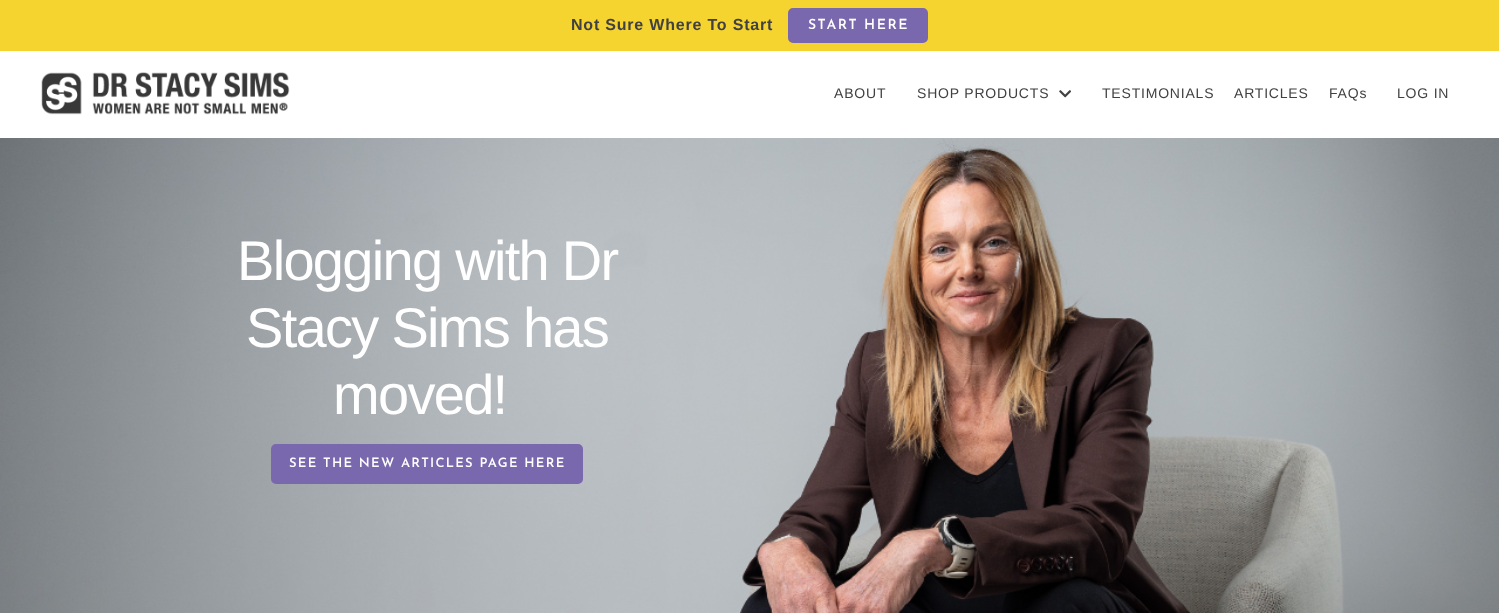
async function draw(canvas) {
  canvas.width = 1499;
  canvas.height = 613;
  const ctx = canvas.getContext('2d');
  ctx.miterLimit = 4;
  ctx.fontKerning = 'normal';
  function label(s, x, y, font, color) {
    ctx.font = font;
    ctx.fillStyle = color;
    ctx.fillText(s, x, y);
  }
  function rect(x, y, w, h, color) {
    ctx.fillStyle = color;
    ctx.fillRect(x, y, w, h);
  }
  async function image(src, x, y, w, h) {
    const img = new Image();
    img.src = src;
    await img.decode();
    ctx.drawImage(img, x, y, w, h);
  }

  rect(0, 0, 1499, 613, '#fff');
  rect(0, 0, 1499, 51, '#f5d42f');
  ctx.letterSpacing = '0.8px';
  label('Not Sure Where To Start', 571, 30, 'bold 16px Liberation Sans', '#414042');
  ctx.fillStyle = '#7a68ae';
  ctx.beginPath();
  ctx.roundRect(789, 9, 138, 33, 4);
  ctx.fill();
  ctx.strokeStyle = '#7a68ae';
  ctx.lineWidth = 2;
  ctx.stroke();
  ctx.letterSpacing = '1.5px';
  label('START HERE', 808, 29, '600 14px Josefin Sans', '#fff');
  await image('assets/img1.png', 41, 72, 249, 43);
  ctx.letterSpacing = '0.8px';
  label('ABOUT', 834, 98, '14px Liberation Sans', '#414042');
  label('SHOP PRODUCTS', 917, 98, '14px Liberation Sans', '#414042');
  await image('assets/img2.png', 1059, 90, 12, 8);
  label('TESTIMONIALS', 1102, 98, '14px Liberation Sans', '#414042');
  label('ARTICLES', 1234, 98, '14px Liberation Sans', '#414042');
  label('FAQs', 1329, 98, '14px Liberation Sans', '#414042');
  label('LOG IN', 1397, 98, '14px Liberation Sans', '#414042');
  await image('assets/img3.png', 0, 138, 1499, 475);
  ctx.letterSpacing = '-1.7px';
  label('Blogging with Dr', 237, 280, '56px Liberation Sans', '#fff');
  label('Stacy Sims has', 246, 347, '56px Liberation Sans', '#fff');
  label('moved!', 333, 414, '56px Liberation Sans', '#fff');
  ctx.fillStyle = '#7a68ae';
  ctx.beginPath();
  ctx.roundRect(272, 445, 310, 38, 4);
  ctx.fill();
  ctx.stroke();
  ctx.letterSpacing = '1.3px';
  label('SEE THE NEW ARTICLES PAGE HERE', 289, 467, '600 13px Josefin Sans', '#fff');
}

draw(document.querySelector('canvas'));
